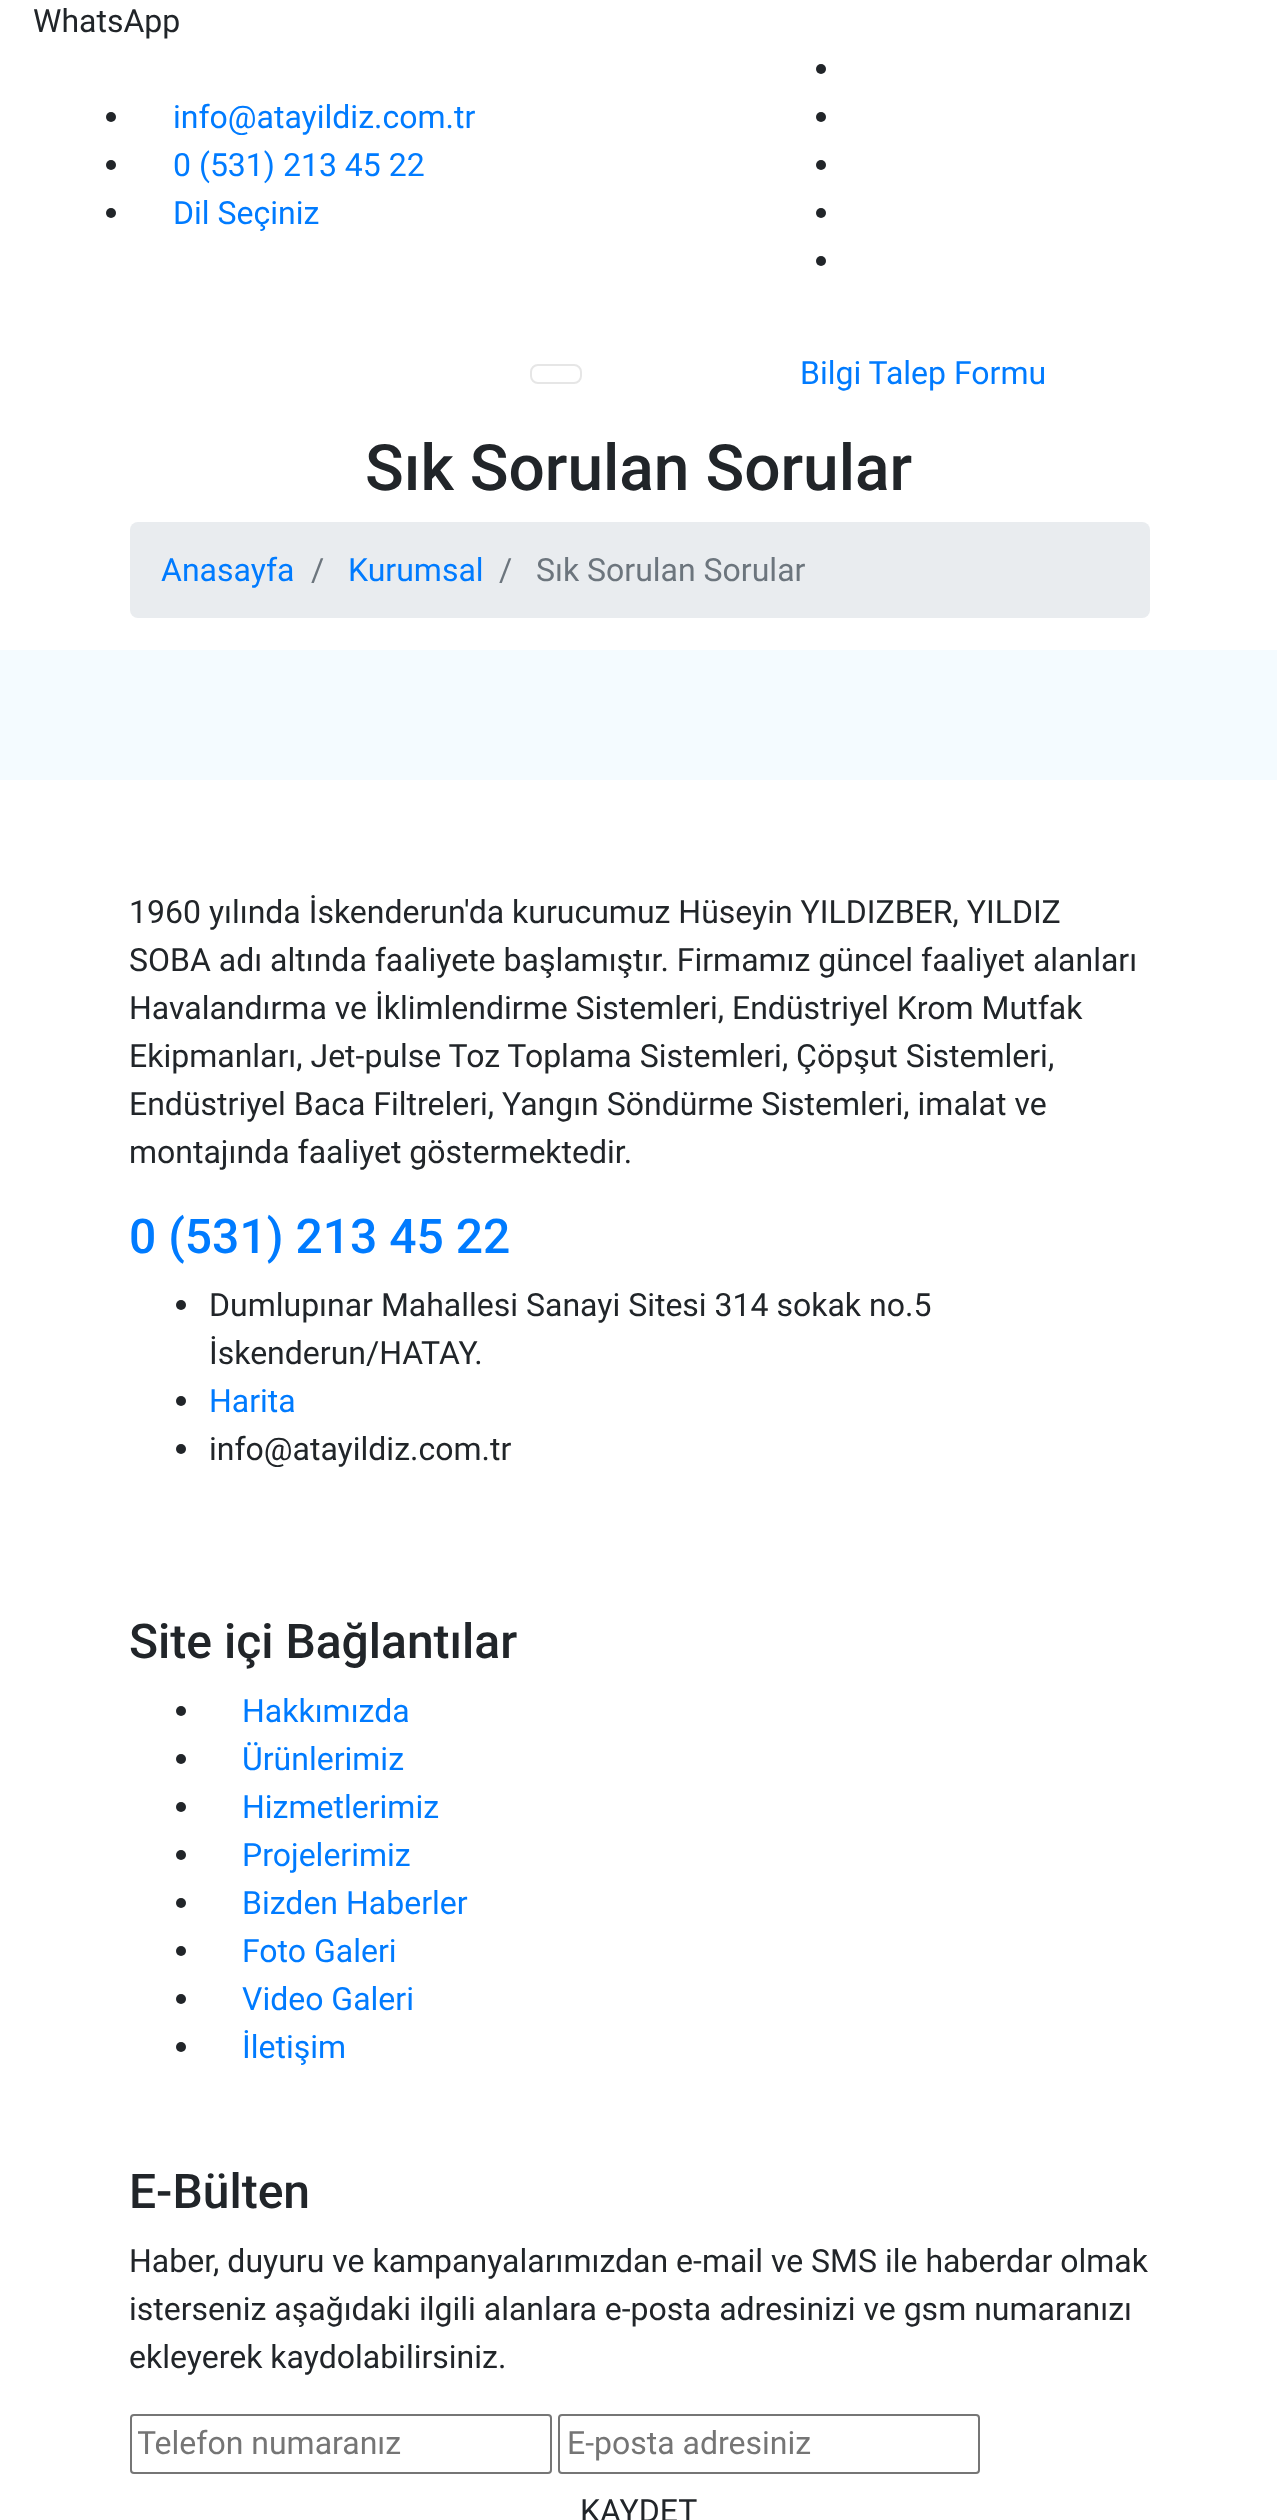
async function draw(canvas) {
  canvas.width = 1277;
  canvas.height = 2520;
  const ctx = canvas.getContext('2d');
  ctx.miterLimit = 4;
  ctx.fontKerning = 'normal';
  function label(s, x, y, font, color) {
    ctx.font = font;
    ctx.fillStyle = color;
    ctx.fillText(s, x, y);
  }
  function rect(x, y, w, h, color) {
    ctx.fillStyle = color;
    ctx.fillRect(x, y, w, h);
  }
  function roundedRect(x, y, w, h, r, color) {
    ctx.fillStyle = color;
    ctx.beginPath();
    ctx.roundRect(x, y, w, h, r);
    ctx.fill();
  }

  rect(0, 0, 1277, 2520, '#fff');
  label('WhatsApp', 33, 32, '32px Roboto', '#212529');
  ctx.beginPath();
  ctx.arc(111, 117, 5, 0, 2 * Math.PI);
  ctx.fill();
  label('info@atayildiz.com.tr', 173, 128, '32px Roboto', '#007bff');
  ctx.fillStyle = '#212529';
  ctx.beginPath();
  ctx.arc(111, 165, 5, 0, 2 * Math.PI);
  ctx.fill();
  label('0 (531) 213 45 22', 173, 176, '32px Roboto', '#007bff');
  ctx.fillStyle = '#212529';
  ctx.beginPath();
  ctx.arc(111, 213, 5, 0, 2 * Math.PI);
  ctx.fill();
  label('Dil Seçiniz', 173, 224, '32px Roboto', '#007bff');
  ctx.fillStyle = '#212529';
  ctx.beginPath();
  ctx.arc(821, 69, 5, 0, 2 * Math.PI);
  ctx.fill();
  ctx.beginPath();
  ctx.arc(821, 117, 5, 0, 2 * Math.PI);
  ctx.fill();
  ctx.beginPath();
  ctx.arc(821, 165, 5, 0, 2 * Math.PI);
  ctx.fill();
  ctx.beginPath();
  ctx.arc(821, 213, 5, 0, 2 * Math.PI);
  ctx.fill();
  ctx.beginPath();
  ctx.arc(821, 261, 5, 0, 2 * Math.PI);
  ctx.fill();
  ctx.beginPath();
  ctx.roundRect(531, 365, 50, 18, 7);
  ctx.strokeStyle = '#e6e6e6';
  ctx.lineWidth = 2;
  ctx.stroke();
  label('Bilgi Talep Formu', 800, 384, '32px Roboto', '#007bff');
  label('Sık Sorulan Sorular', 365, 490, '500 64px Roboto', '#212529');
  roundedRect(130, 522, 1020, 96, 8, '#e9ecef');
  label('Anasayfa', 161, 581, '32px Roboto', '#007bff');
  label('/', 311, 581, '32px Roboto', '#6c757d');
  label('Kurumsal', 348, 581, '32px Roboto', '#007bff');
  label('/', 499, 581, '32px Roboto', '#6c757d');
  label('Sık Sorulan Sorular', 536, 581, '32px Roboto', '#6c757d');
  rect(0, 650, 1277, 130, '#f4fbff');
  label('1960 yılında İskenderun\'da kurucumuz Hüseyin YILDIZBER, YILDIZ', 129, 923, '32px Roboto', '#212529');
  label('SOBA adı altında faaliyete başlamıştır. Firmamız güncel faaliyet alanları', 129, 971, '32px Roboto', '#212529');
  label('Havalandırma ve İklimlendirme Sistemleri, Endüstriyel Krom Mutfak', 129, 1019, '32px Roboto', '#212529');
  label('Ekipmanları, Jet-pulse Toz Toplama Sistemleri, Çöpşut Sistemleri,', 129, 1067, '32px Roboto', '#212529');
  label('Endüstriyel Baca Filtreleri, Yangın Söndürme Sistemleri, imalat ve', 129, 1115, '32px Roboto', '#212529');
  label('montajında faaliyet göstermektedir.', 129, 1163, '32px Roboto', '#212529');
  label('0 (531) 213 45 22', 129, 1253, '500 48px Roboto', '#007bff');
  ctx.fillStyle = '#212529';
  ctx.beginPath();
  ctx.arc(181, 1305, 5, 0, 2 * Math.PI);
  ctx.fill();
  label('Dumlupınar Mahallesi Sanayi Sitesi 314 sokak no.5', 209, 1316, '32px Roboto', '#212529');
  label('İskenderun/HATAY.', 209, 1364, '32px Roboto', '#212529');
  ctx.beginPath();
  ctx.arc(181, 1401, 5, 0, 2 * Math.PI);
  ctx.fill();
  label('Harita', 209, 1412, '32px Roboto', '#007bff');
  ctx.fillStyle = '#212529';
  ctx.beginPath();
  ctx.arc(181, 1449, 5, 0, 2 * Math.PI);
  ctx.fill();
  label('info@atayildiz.com.tr', 209, 1460, '32px Roboto', '#212529');
  label('Site içi Bağlantılar', 129, 1658, '500 48px Roboto', '#212529');
  ctx.beginPath();
  ctx.arc(181, 1711, 5, 0, 2 * Math.PI);
  ctx.fill();
  label('Hakkımızda', 242, 1722, '32px Roboto', '#007bff');
  ctx.fillStyle = '#212529';
  ctx.beginPath();
  ctx.arc(181, 1759, 5, 0, 2 * Math.PI);
  ctx.fill();
  label('Ürünlerimiz', 242, 1770, '32px Roboto', '#007bff');
  ctx.fillStyle = '#212529';
  ctx.beginPath();
  ctx.arc(181, 1807, 5, 0, 2 * Math.PI);
  ctx.fill();
  label('Hizmetlerimiz', 242, 1818, '32px Roboto', '#007bff');
  ctx.fillStyle = '#212529';
  ctx.beginPath();
  ctx.arc(181, 1855, 5, 0, 2 * Math.PI);
  ctx.fill();
  label('Projelerimiz', 242, 1866, '32px Roboto', '#007bff');
  ctx.fillStyle = '#212529';
  ctx.beginPath();
  ctx.arc(181, 1903, 5, 0, 2 * Math.PI);
  ctx.fill();
  label('Bizden Haberler', 242, 1914, '32px Roboto', '#007bff');
  ctx.fillStyle = '#212529';
  ctx.beginPath();
  ctx.arc(181, 1951, 5, 0, 2 * Math.PI);
  ctx.fill();
  label('Foto Galeri', 242, 1962, '32px Roboto', '#007bff');
  ctx.fillStyle = '#212529';
  ctx.beginPath();
  ctx.arc(181, 1999, 5, 0, 2 * Math.PI);
  ctx.fill();
  label('Video Galeri', 242, 2010, '32px Roboto', '#007bff');
  ctx.fillStyle = '#212529';
  ctx.beginPath();
  ctx.arc(181, 2047, 5, 0, 2 * Math.PI);
  ctx.fill();
  label('İletişim', 242, 2058, '32px Roboto', '#007bff');
  label('E-Bülten', 129, 2208, '500 48px Roboto', '#212529');
  label('Haber, duyuru ve kampanyalarımızdan e-mail ve SMS ile haberdar olmak', 129, 2272, '32px Roboto', '#212529');
  label('isterseniz aşağıdaki ilgili alanlara e-posta adresinizi ve gsm numaranızı', 129, 2320, '32px Roboto', '#212529');
  label('ekleyerek kaydolabilirsiniz.', 129, 2368, '32px Roboto', '#212529');
  ctx.beginPath();
  ctx.roundRect(131, 2415, 420, 58, 3);
  ctx.strokeStyle = '#767676';
  ctx.stroke();
  ctx.save();
  ctx.beginPath();
  ctx.rect(138, 2424, 406, 38);
  ctx.clip();
  label('Telefon numaranız', 137, 2454, '32px Roboto', '#757575');
  ctx.restore();
  ctx.beginPath();
  ctx.roundRect(559, 2415, 420, 58, 3);
  ctx.stroke();
  label('E-posta adresiniz', 567, 2454, '32px Roboto', '#757575');
  label('KAYDET', 580, 2522, '32px Roboto', '#212529');
}

draw(document.querySelector('canvas'));
